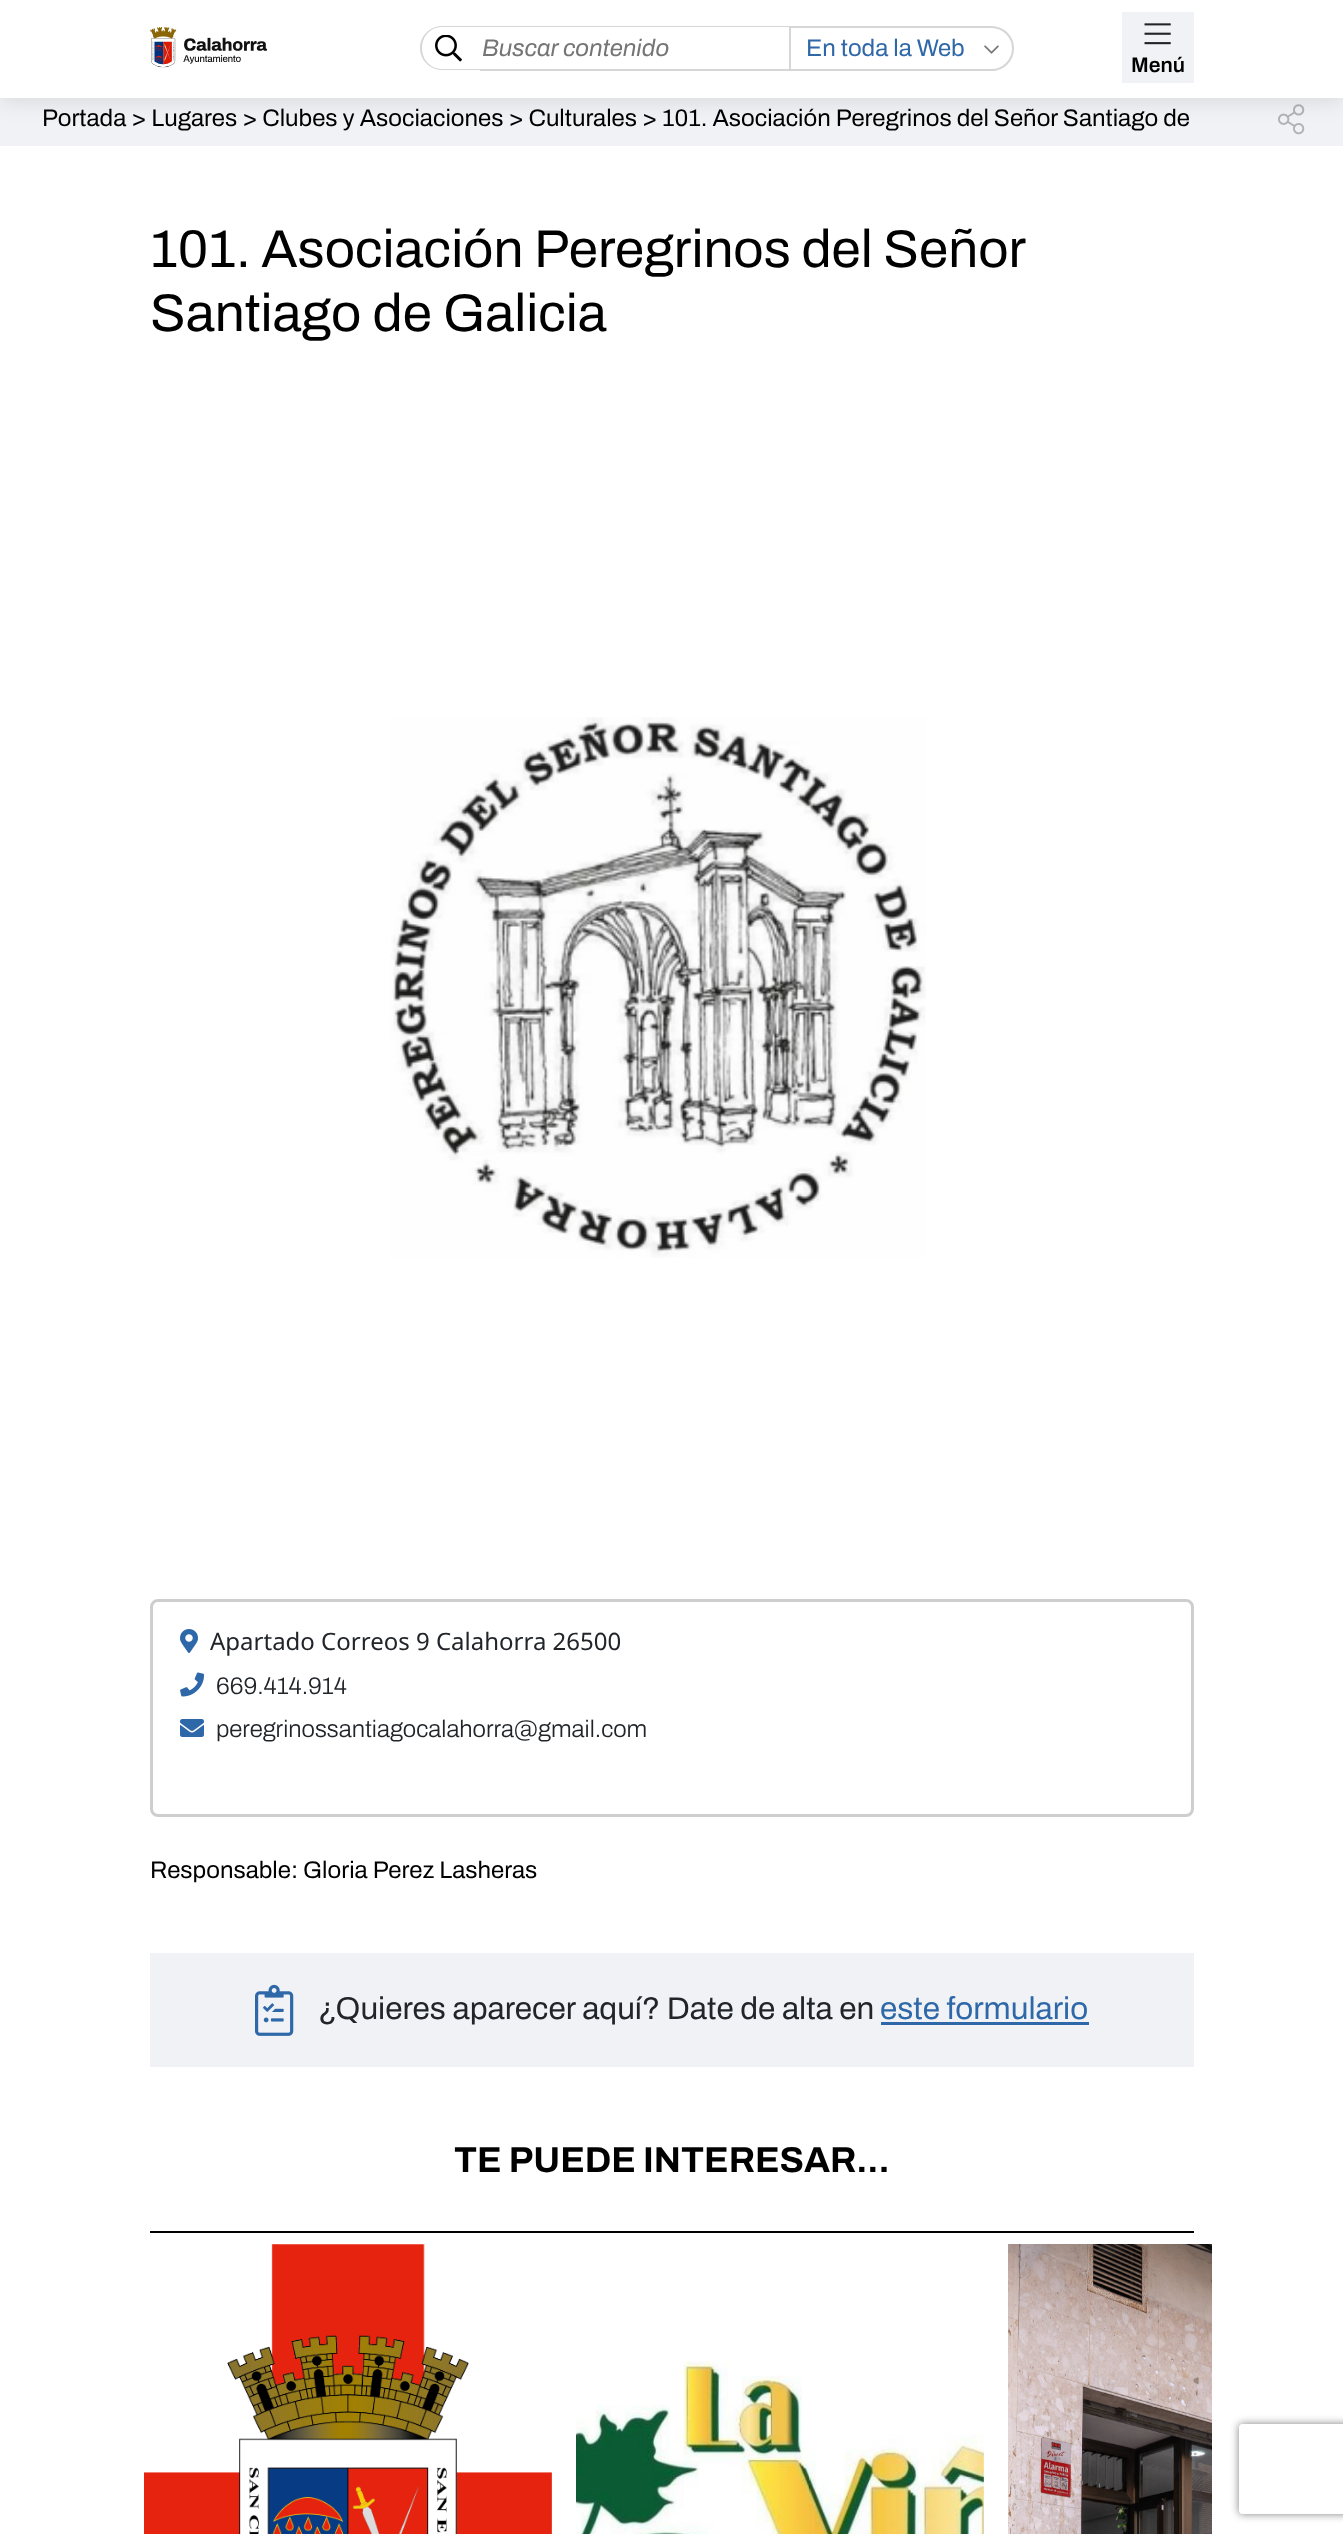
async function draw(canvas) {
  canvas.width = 1343;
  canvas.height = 2534;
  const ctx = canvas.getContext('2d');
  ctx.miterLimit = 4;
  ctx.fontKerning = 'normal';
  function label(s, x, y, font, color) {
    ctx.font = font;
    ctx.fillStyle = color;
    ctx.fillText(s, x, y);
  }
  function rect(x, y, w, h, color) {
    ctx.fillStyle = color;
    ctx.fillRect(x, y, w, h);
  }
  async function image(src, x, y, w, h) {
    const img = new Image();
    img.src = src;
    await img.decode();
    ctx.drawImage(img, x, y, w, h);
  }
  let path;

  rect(0, 0, 1343, 2534, '#fff');
  rect(0, 98, 1343, 48, '#f0f2f5');
  await image('assets/img5.png', 1278, 104, 27, 31);
  ctx.fillStyle = '#0000001a';
  ctx.filter = 'blur(11px)';
  ctx.beginPath();
  ctx.rect(0, 3, 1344, 98);
  ctx.fill();
  ctx.filter = 'none';
  rect(0, 0, 1343, 98, '#fff');
  await image('assets/img1.png', 150, 27, 117, 41);
  ctx.fillStyle = '#d6d6d6';
  path = new Path2D('M442 26H480V70H442C430 70 420 60 420 48C420 36 430 26 442 26ZM442 27H480V69H442C431 69 422 60 422 48C422 36 431 27 442 27Z');
  ctx.fill(path, 'evenodd');
  await image('assets/img2.png', 435, 35, 27, 27);
  rect(480, 26, 309, 1, '#d6d6d6');
  rect(480, 69, 309, 2, '#d6d6d6');
  label('Buscar contenido', 482, 56, 'italic 24px Archivo', '#757575');
  ctx.beginPath();
  ctx.roundRect(790, 27, 223, 43, [0, 21.5, 21.5, 0]);
  ctx.strokeStyle = '#d6d6d6';
  ctx.lineWidth = 2;
  ctx.stroke();
  label('En toda la Web', 806, 56, '24px Archivo', '#2f68a9');
  await image('assets/img3.png', 984, 45, 15, 9);
  rect(1122, 12, 72, 71, '#f0f2f5');
  await image('assets/img4.png', 1144, 23, 27, 22);
  label('Menú', 1131, 72, '600 21px Archivo', '#000');
  label('Portada > Lugares > Clubes y Asociaciones > Culturales > 101. Asociación Peregrinos del Señor Santiago de', 42, 126, '24px Archivo', '#000');
  ctx.wordSpacing = '-0.5px';
  label('101. Asociación Peregrinos del Señor', 150, 267, '53.2px Archivo', '#000');
  ctx.wordSpacing = '0px';
  label('Santiago de Galicia', 150, 331, '53.2px Archivo', '#000');
  await image('assets/img6.png', 390, 717, 536, 541);
  ctx.beginPath();
  ctx.roundRect(151.5, 1600.5, 1041, 215, 6.5);
  ctx.strokeStyle = '#cecece';
  ctx.lineWidth = 3;
  ctx.stroke();
  await image('assets/img7.png', 180, 1629, 18, 24);
  label('Apartado Correos 9 Calahorra 26500', 210, 1650, '24px Noto Sans', '#212529');
  await image('assets/img8.png', 180, 1672, 24, 25);
  label('669.414.914', 216, 1694, '300 24px Archivo', '#212529');
  await image('assets/img9.png', 180, 1719, 24, 18);
  label('peregrinossantiagocalahorra@gmail.com', 216, 1737, '300 24px Archivo', '#212529');
  label('Responsable: Gloria Perez Lasheras', 150, 1878, '24px Archivo', '#000');
  rect(150, 1953, 1044, 114, '#f0f2f5');
  await image('assets/img10.png', 255, 1984, 39, 52);
  label('¿Quieres aparecer aquí? Date de alta en', 318, 2019, '31.5px Archivo', '#212529');
  label('este formulario', 880, 2019, '31.5px Archivo', '#2f68a9');
  rect(881, 2022, 208, 3, '#2f68a9');
  rect(150, 2231, 1044, 2, '#000');
  label('TE PUEDE INTERESAR...', 454, 2172, 'bold 36px Archivo', '#000');
  await image('assets/img11.png', 144, 2244, 408, 290);
  await image('assets/img12.png', 576, 2361, 408, 173);
  await image('assets/img13.png', 1008, 2244, 204, 290);
  ctx.save();
  path = new Path2D('M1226 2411H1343V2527H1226ZM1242 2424H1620C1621.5 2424 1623 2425.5 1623 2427V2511C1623 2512.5 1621.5 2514 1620 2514H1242C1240.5 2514 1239 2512.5 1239 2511V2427C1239 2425.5 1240.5 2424 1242 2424Z');
  ctx.clip(path, 'evenodd');
  ctx.fillStyle = '#808080';
  ctx.filter = 'blur(4px)';
  ctx.beginPath();
  ctx.roundRect(1239, 2424, 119, 90, 3);
  ctx.fill();
  ctx.filter = 'none';
  ctx.restore();
}

draw(document.querySelector('canvas'));
